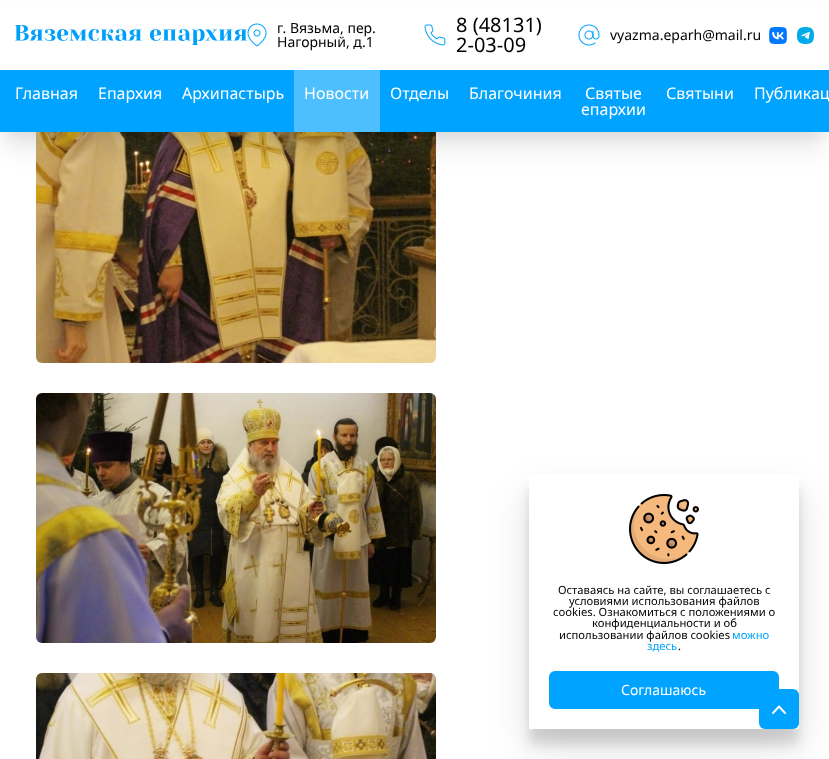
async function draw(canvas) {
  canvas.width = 829;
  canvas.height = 759;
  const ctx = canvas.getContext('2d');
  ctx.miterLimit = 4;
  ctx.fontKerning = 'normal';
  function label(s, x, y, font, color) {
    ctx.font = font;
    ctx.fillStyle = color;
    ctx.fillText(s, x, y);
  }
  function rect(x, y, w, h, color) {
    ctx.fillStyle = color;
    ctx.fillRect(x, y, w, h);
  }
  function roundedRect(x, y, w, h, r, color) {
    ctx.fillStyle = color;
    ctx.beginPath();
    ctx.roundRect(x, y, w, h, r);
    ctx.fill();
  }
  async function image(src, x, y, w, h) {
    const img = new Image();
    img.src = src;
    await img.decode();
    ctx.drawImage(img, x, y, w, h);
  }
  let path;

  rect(0, 0, 829, 759, '#fff');
  await image('assets/img7.png', 36, 132, 400, 231);
  ctx.fillStyle = '#0000000a';
  ctx.filter = 'blur(5px)';
  ctx.beginPath();
  ctx.rect(5, 15, 819, 122);
  ctx.fill();
  ctx.filter = 'none';
  ctx.fillStyle = '#0000001a';
  ctx.filter = 'blur(12.5px)';
  ctx.beginPath();
  ctx.rect(5, 25, 819, 122);
  ctx.fill();
  ctx.filter = 'none';
  rect(0, 7, 829, 63, '#fff');
  await image('assets/img1.png', 15, 25, 232, 20);
  await image('assets/img2.png', 247, 23, 20, 24);
  label('г. Вязьма, пер.', 277, 33, '14px Noto Sans', '#000');
  label('Нагорный, д.1', 277, 47, '14px Noto Sans', '#000');
  await image('assets/img3.png', 424, 24, 22, 22);
  label('8 (48131)', 456, 32, '20px Noto Sans', '#000');
  label('2-03-09', 456, 52, '20px Noto Sans', '#000');
  await image('assets/img4.png', 578, 24, 22, 22);
  label('vyazma.eparh@mail.ru', 610, 40, '14px Noto Sans', '#000');
  await image('assets/img5.png', 769, 27, 18, 17);
  await image('assets/img6.png', 797, 27, 17, 17);
  rect(0, 70, 829, 62, '#00a3ff');
  label('Главная', 15, 99, '16px Noto Sans', '#fff');
  label('Епархия', 98, 99, '16px Noto Sans', '#fff');
  label('Архипастырь', 182, 99, '16px Noto Sans', '#fff');
  rect(294, 70, 86, 62, '#4dbfff');
  label('Новости', 304, 99, '16px Noto Sans', '#fff');
  label('Отделы', 390, 99, '16px Noto Sans', '#fff');
  label('Благочиния', 469, 99, '16px Noto Sans', '#fff');
  label('Святые', 585, 99, '16px Noto Sans', '#fff');
  label('епархии', 581, 115, '16px Noto Sans', '#fff');
  label('Святыни', 666, 99, '16px Noto Sans', '#fff');
  label('Публикац', 754, 99, '16px Noto Sans', '#fff');
  await image('assets/img8.png', 36, 393, 400, 250);
  await image('assets/img9.png', 36, 673, 400, 86);
  ctx.save();
  path = new Path2D('M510 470H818V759H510ZM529 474H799V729H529Z');
  ctx.clip(path, 'evenodd');
  ctx.fillStyle = '#00000021';
  ctx.filter = 'blur(6px)';
  ctx.beginPath();
  ctx.rect(529, 489, 270, 255);
  ctx.fill();
  ctx.filter = 'none';
  ctx.restore();
  ctx.save();
  path = new Path2D('M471 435H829V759H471ZM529 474H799V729H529Z');
  ctx.clip(path, 'evenodd');
  ctx.fillStyle = '#0000001f';
  ctx.filter = 'blur(19px)';
  ctx.beginPath();
  ctx.rect(529, 493, 270, 255);
  ctx.fill();
  ctx.filter = 'none';
  ctx.restore();
  await image('assets/img10.png', 629, 494, 70, 70);
  label('Оставаясь на сайте, вы соглашаетесь с', 558, 594, '11.25px Noto Sans', '#000');
  label('условиями использования файлов', 569, 605, '11.25px Noto Sans', '#000');
  label('cookies. Ознакомиться с положениями о', 553, 616, '11.25px Noto Sans', '#000');
  label('конфиденциальности и об', 592, 627, '11.25px Noto Sans', '#000');
  label('использовании файлов cookies', 559, 639, '11.25px Noto Sans', '#000');
  label('можно', 732, 639, '11.25px Noto Sans', '#00a3ff');
  label('здесь', 647, 650, '11.25px Noto Sans', '#00a3ff');
  label('.', 678, 650, '11.25px Noto Sans', '#000');
  ctx.fillStyle = '#00a3ff';
  ctx.beginPath();
  ctx.roundRect(550, 672, 228, 36, 5);
  ctx.fill();
  ctx.strokeStyle = '#00a3ff';
  ctx.lineWidth = 2;
  ctx.stroke();
  label('Соглашаюсь', 621, 695, '14px Noto Sans', '#fff');
  roundedRect(759, 689, 40, 40, 6, '#00a3ff');
  path = new Path2D('M785 713L779 706.5L773 713');
  ctx.strokeStyle = '#fff';
  ctx.lineWidth = 1.9;
  ctx.lineCap = 'round';
  ctx.lineJoin = 'round';
  ctx.stroke(path);
}

draw(document.querySelector('canvas'));
